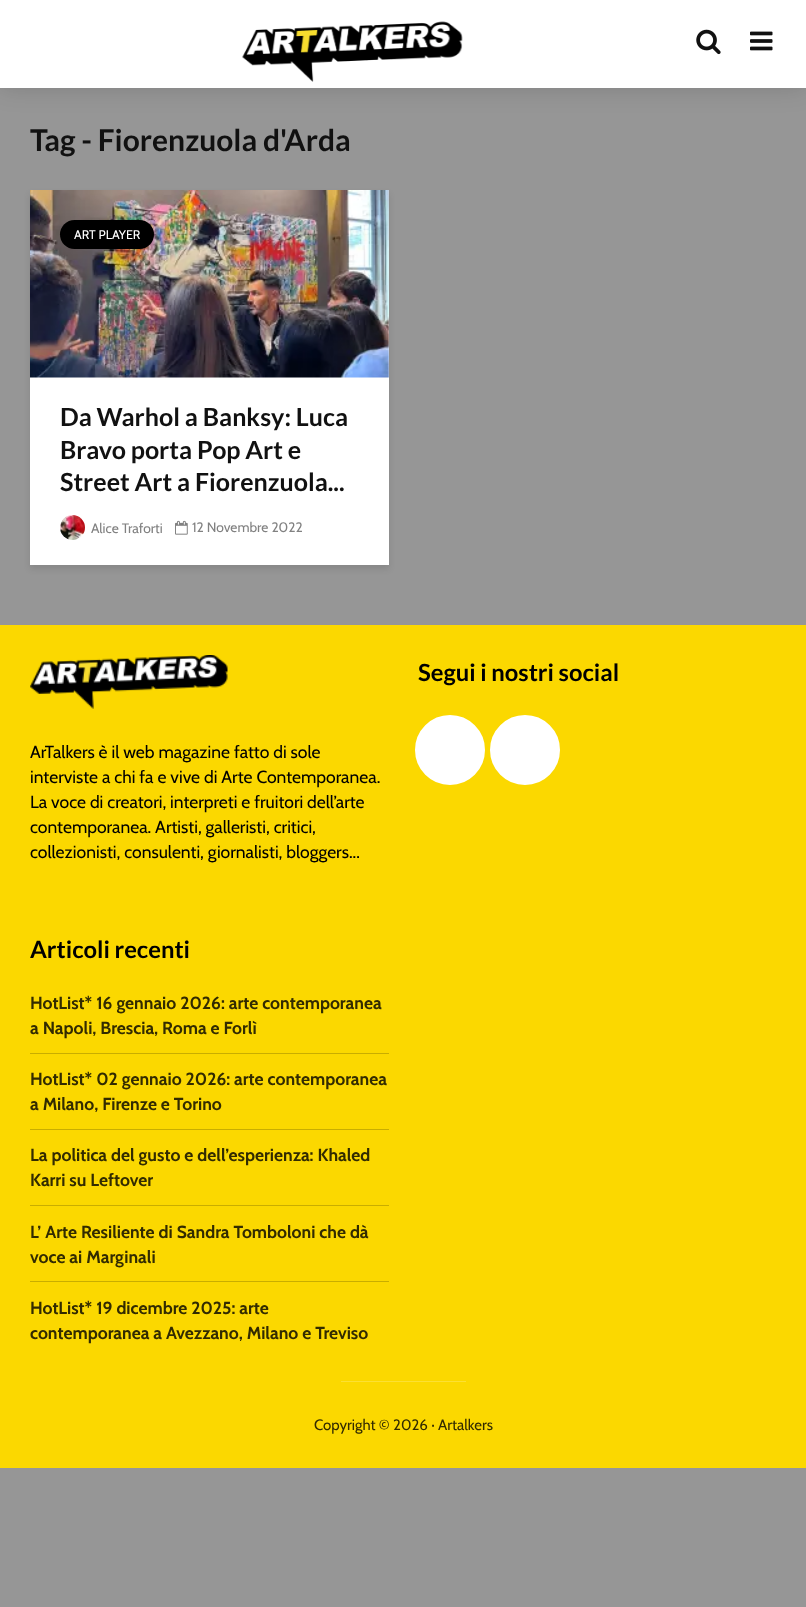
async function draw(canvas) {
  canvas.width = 806;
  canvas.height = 1607;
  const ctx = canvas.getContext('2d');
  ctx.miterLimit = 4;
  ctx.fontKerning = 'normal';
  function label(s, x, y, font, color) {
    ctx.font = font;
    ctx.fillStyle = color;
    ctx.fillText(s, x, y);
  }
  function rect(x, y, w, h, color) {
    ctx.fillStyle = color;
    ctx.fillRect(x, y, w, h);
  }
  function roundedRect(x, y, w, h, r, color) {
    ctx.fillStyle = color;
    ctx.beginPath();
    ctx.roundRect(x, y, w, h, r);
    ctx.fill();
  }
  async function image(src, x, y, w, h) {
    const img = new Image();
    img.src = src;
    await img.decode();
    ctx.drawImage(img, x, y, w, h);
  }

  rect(0, 0, 806, 1607, '#969696');
  ctx.fillStyle = '#00000026';
  ctx.filter = 'blur(12.5px)';
  ctx.beginPath();
  ctx.rect(0, 0, 806, 88);
  ctx.fill();
  ctx.filter = 'none';
  rect(0, 0, 806, 88, '#fff');
  await image('assets/img1.png', 242, 21, 221, 61);
  await image('assets/img2.png', 696, 29, 25, 26);
  await image('assets/img3.png', 750, 31, 23, 20);
  label('Tag - Fiorenzuola d\'Arda', 30, 151, 'bold 30px Lato', '#111');
  ctx.fillStyle = '#0001011a';
  ctx.filter = 'blur(3px)';
  ctx.beginPath();
  ctx.rect(30, 194, 359, 375);
  ctx.fill();
  ctx.filter = 'none';
  rect(30, 190, 359, 375, '#fff');
  await image('assets/img4.png', 30, 190, 359, 188);
  roundedRect(60, 220, 94, 29, 14.5, '#000');
  label('ART PLAYER', 74, 239, '12.5px Cabin', '#fff');
  label('Da Warhol a Banksy: Luca', 60, 426, 'bold 25px Lato', '#111');
  label('Bravo porta Pop Art e', 60, 459, 'bold 25px Lato', '#111');
  label('Street Art a Fiorenzuola...', 60, 491, 'bold 25px Lato', '#111');
  await image('assets/img5.png', 60, 515, 25, 25);
  label('Alice Traforti', 91, 533, '13.75px Cabin', '#818181');
  await image('assets/img6.png', 175, 520, 13, 15);
  label('12 Novembre 2022', 192, 532, '13.75px Cabin', '#818181');
  rect(0, 625, 806, 843, '#fbd800');
  label('Segui i nostri social', 418, 681, 'bold 23.75px Lato', '#000');
  ctx.fillStyle = '#fff';
  ctx.beginPath();
  ctx.arc(450, 750, 33, 0, 2 * Math.PI);
  ctx.fill();
  ctx.strokeStyle = '#fff';
  ctx.lineWidth = 4;
  ctx.stroke();
  ctx.beginPath();
  ctx.arc(525, 750, 33, 0, 2 * Math.PI);
  ctx.fill();
  ctx.stroke();
  await image('assets/img7.png', 30, 655, 198, 54);
  label('ArTalkers è il web magazine fatto di sole', 30, 758, '17.5px Cabin', '#000');
  label('interviste a chi fa e vive di Arte Contemporanea.', 30, 783, '17.5px Cabin', '#000');
  label('La voce di creatori, interpreti e fruitori dell’arte', 30, 808, '17.5px Cabin', '#000');
  label('contemporanea. Artisti, galleristi, critici,', 30, 833, '17.5px Cabin', '#000');
  label('collezionisti, consulenti, giornalisti, bloggers...', 30, 858, '17.5px Cabin', '#000');
  label('Articoli recenti', 30, 958, 'bold 23.75px Lato', '#000');
  rect(30, 1053, 359, 1, '#c9ad00');
  label('HotList* 16 gennaio 2026: arte contemporanea', 30, 1009, 'bold 17.5px Cabin', '#322b00');
  label('a Napoli, Brescia, Roma e Forlì', 30, 1034, 'bold 17.5px Cabin', '#322b00');
  rect(30, 1129, 359, 1, '#c9ad00');
  label('HotList* 02 gennaio 2026: arte contemporanea', 30, 1085, 'bold 17.5px Cabin', '#322b00');
  label('a Milano, Firenze e Torino', 30, 1110, 'bold 17.5px Cabin', '#322b00');
  rect(30, 1205, 359, 1, '#c9ad00');
  label('La politica del gusto e dell’esperienza: Khaled', 30, 1161, 'bold 17.5px Cabin', '#322b00');
  label('Karri su Leftover', 30, 1186, 'bold 17.5px Cabin', '#322b00');
  rect(30, 1281, 359, 1, '#c9ad00');
  label('L’ Arte Resiliente di Sandra Tomboloni che dà', 30, 1238, 'bold 17.5px Cabin', '#322b00');
  label('voce ai Marginali', 30, 1263, 'bold 17.5px Cabin', '#322b00');
  label('HotList* 19 dicembre 2025: arte', 30, 1314, 'bold 17.5px Cabin', '#322b00');
  label('contemporanea a Avezzano, Milano e Treviso', 30, 1339, 'bold 17.5px Cabin', '#322b00');
  rect(341, 1381, 125, 1, '#fce033');
  label('Copyright © 2026 · Artalkers', 314, 1430, '15px Cabin', '#322b00');
}

draw(document.querySelector('canvas'));
